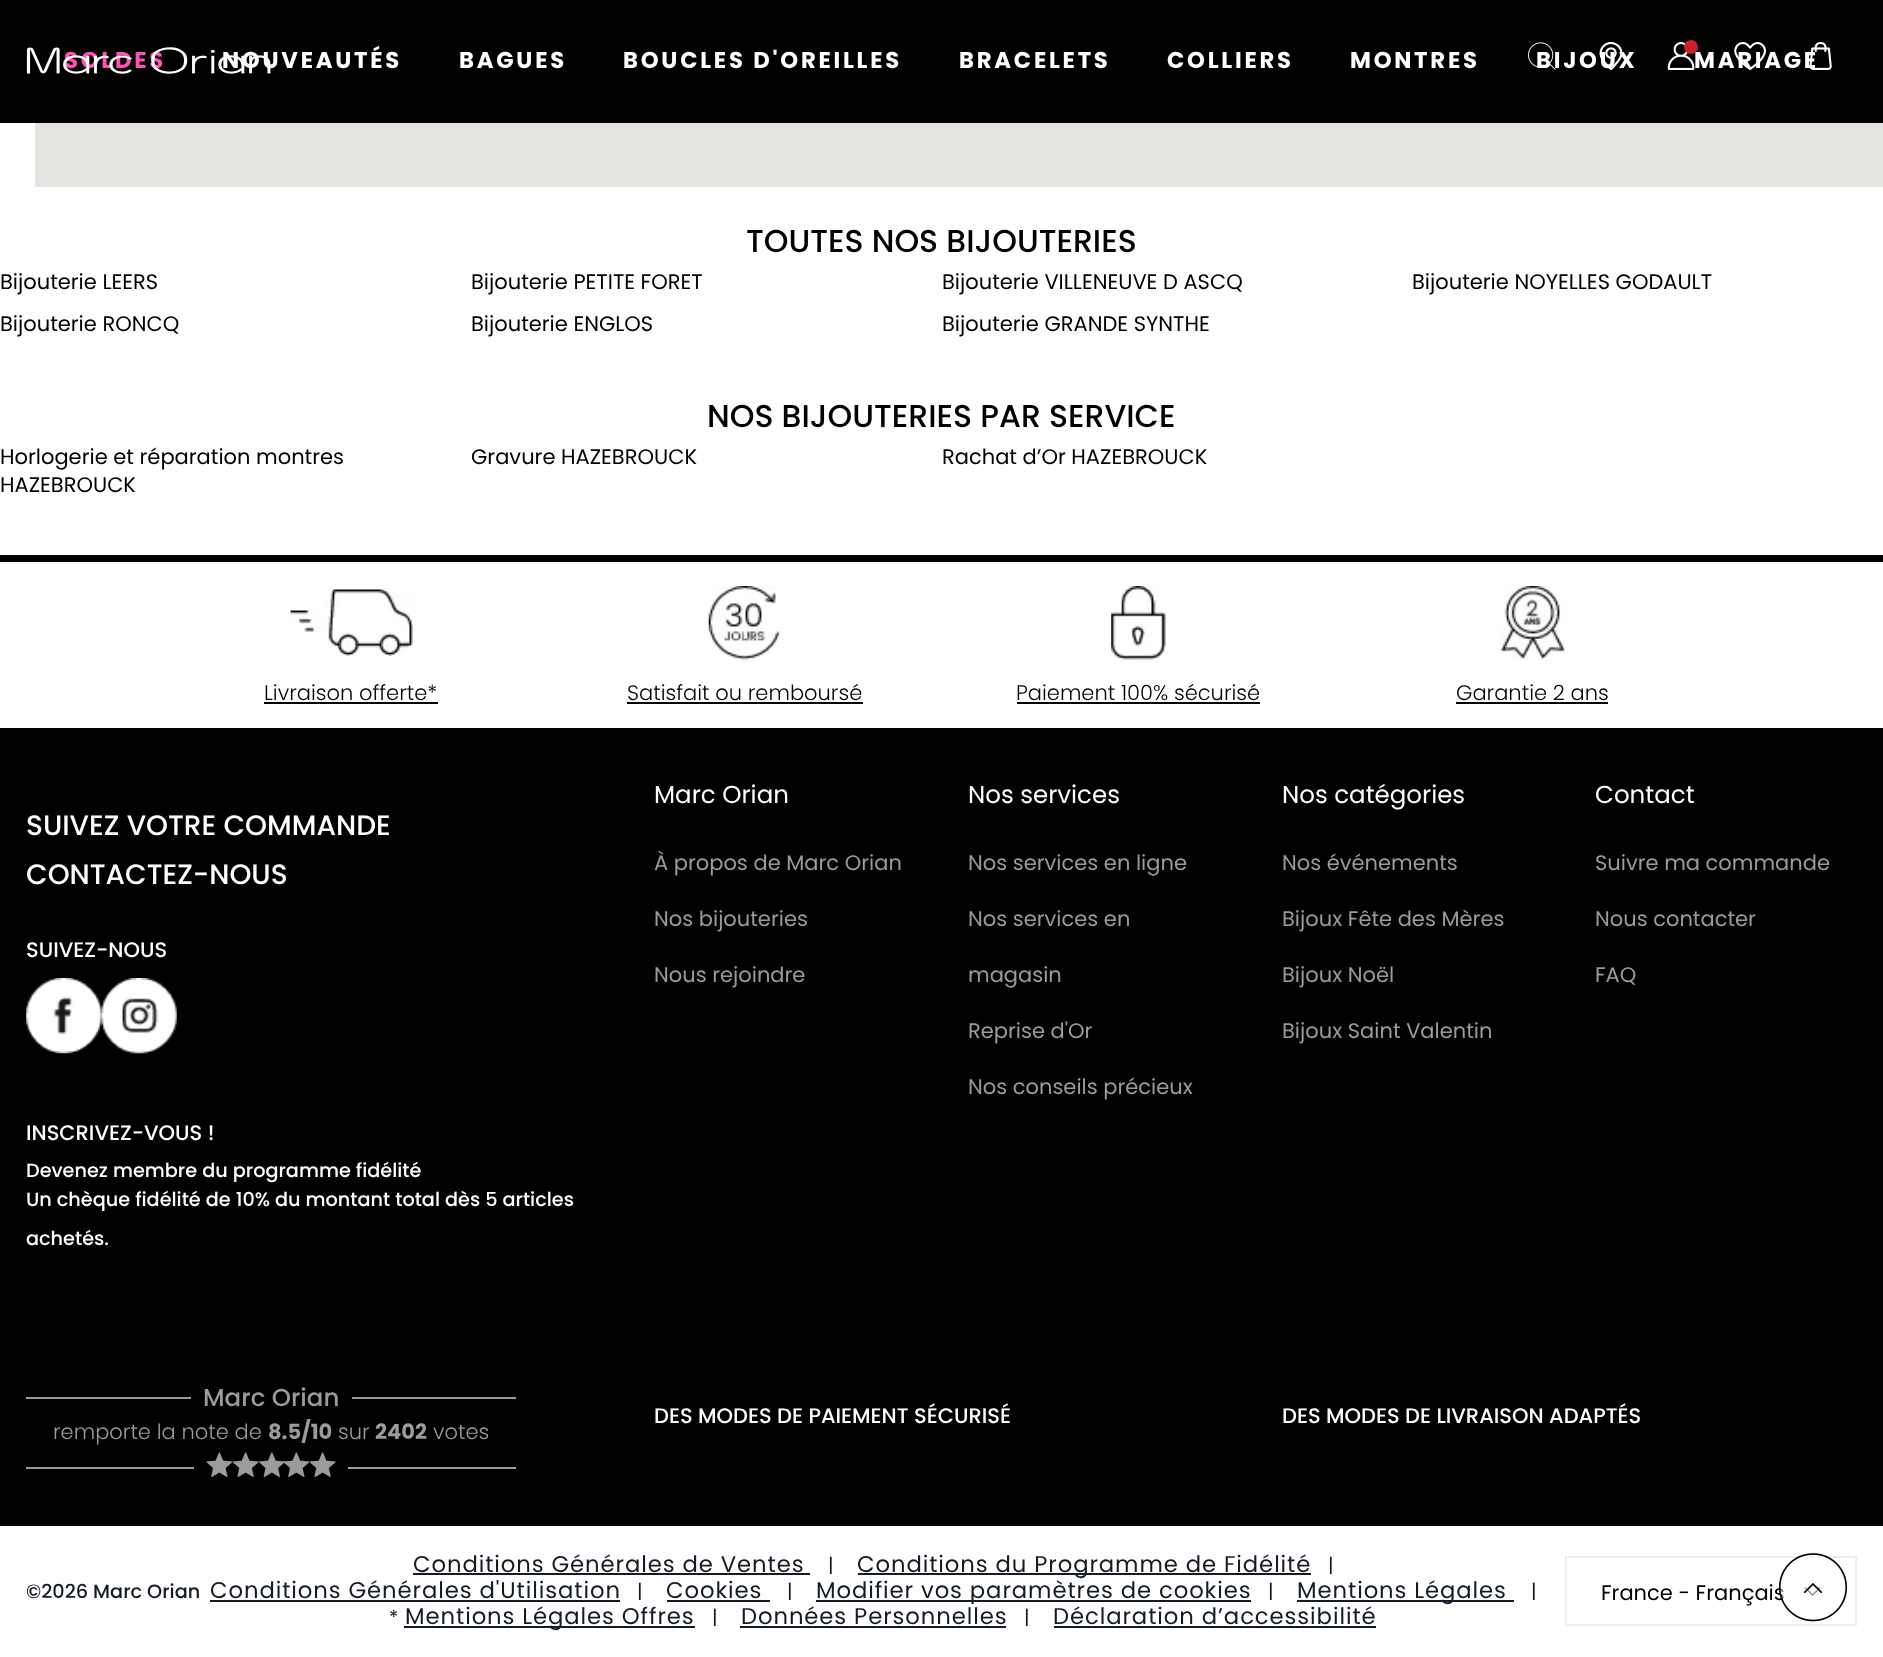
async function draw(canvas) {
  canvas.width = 1883;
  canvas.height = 1657;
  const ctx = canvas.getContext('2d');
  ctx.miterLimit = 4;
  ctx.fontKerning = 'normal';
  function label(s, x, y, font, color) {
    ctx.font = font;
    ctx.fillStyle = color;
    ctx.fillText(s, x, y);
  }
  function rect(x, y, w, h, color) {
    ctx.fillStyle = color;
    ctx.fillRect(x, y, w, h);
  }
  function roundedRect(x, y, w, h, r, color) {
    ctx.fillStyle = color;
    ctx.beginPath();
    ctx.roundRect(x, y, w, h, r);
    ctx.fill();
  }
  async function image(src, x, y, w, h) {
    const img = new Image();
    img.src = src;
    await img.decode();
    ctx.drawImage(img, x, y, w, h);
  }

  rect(0, 0, 1883, 1657, '#fff');
  rect(0, 0, 1883, 123, '#000');
  ctx.letterSpacing = '2.75px';
  label('SOLDES', 64, 68, 'bold 22.75px Poppins', '#ff52b4');
  label('NOUVEAUTÉS', 222, 68, 'bold 22.75px Poppins', '#fff');
  await image('assets/img1.png', 26, 47, 245, 27);
  label('BIJOUX', 1536, 68, 'bold 22.75px Poppins', '#fff');
  await image('assets/img2.png', 1528, 42, 28, 28);
  await image('assets/img3.png', 1599, 42, 24, 28);
  await image('assets/img4.png', 1667, 42, 28, 28);
  label('MARIAGE', 1694, 68, 'bold 22.75px Poppins', '#fff');
  ctx.fillStyle = '#c8232c';
  ctx.beginPath();
  ctx.arc(1691, 47, 7, 0, 2 * Math.PI);
  ctx.fill();
  await image('assets/img5.png', 1734, 42, 32, 28);
  await image('assets/img6.png', 1809, 42, 23, 28);
  label('BAGUES', 459, 68, 'bold 22.75px Poppins', '#fff');
  label('BOUCLES D\'OREILLES', 623, 68, 'bold 22.75px Poppins', '#fff');
  label('BRACELETS', 959, 68, 'bold 22.75px Poppins', '#fff');
  label('COLLIERS', 1167, 68, 'bold 22.75px Poppins', '#fff');
  label('MONTRES', 1350, 68, 'bold 22.75px Poppins', '#fff');
  rect(35, 123, 1848, 64, '#e5e3df');
  ctx.letterSpacing = '0px';
  label('TOUTES NOS BIJOUTERIES', 746, 252, '500 31.5px Poppins', '#000');
  label('Bijouterie LEERS', 0, 289, '21px Poppins', '#000');
  label('Bijouterie PETITE FORET', 471, 289, '21px Poppins', '#000');
  label('Bijouterie VILLENEUVE D ASCQ', 942, 289, '21px Poppins', '#000');
  label('Bijouterie NOYELLES GODAULT', 1412, 289, '21px Poppins', '#000');
  label('Bijouterie RONCQ', 0, 331, '21px Poppins', '#000');
  label('Bijouterie ENGLOS', 471, 331, '21px Poppins', '#000');
  label('Bijouterie GRANDE SYNTHE', 942, 331, '21px Poppins', '#000');
  label('NOS BIJOUTERIES PAR SERVICE', 707, 427, '500 31.5px Poppins', '#000');
  label('Horlogerie et réparation montres', 0, 464, '21px Poppins', '#000');
  label('HAZEBROUCK', 0, 492, '21px Poppins', '#000');
  label('Gravure HAZEBROUCK', 471, 464, '21px Poppins', '#000');
  label('Rachat d’Or HAZEBROUCK', 942, 464, '21px Poppins', '#000');
  rect(0, 555, 1883, 7, '#000');
  await image('assets/img7.png', 290, 589, 123, 67);
  label('Livraison offerte*', 264, 700, '300 21px Poppins', '#000');
  rect(264, 702, 174, 2, '#000');
  await image('assets/img8.png', 708, 586, 72, 74);
  label('Satisfait ou remboursé', 627, 700, '300 21px Poppins', '#000');
  rect(627, 702, 236, 2, '#000');
  await image('assets/img9.png', 1111, 586, 55, 74);
  label('Paiement 100% sécurisé', 1016, 700, '300 21px Poppins', '#000');
  rect(1017, 702, 243, 2, '#000');
  await image('assets/img10.png', 1501, 586, 64, 74);
  label('Garantie 2 ans', 1456, 700, '300 21px Poppins', '#000');
  rect(1456, 702, 152, 2, '#000');
  rect(0, 728, 1883, 798, '#000');
  label('SUIVEZ VOTRE COMMANDE', 26, 835, '500 28px Poppins', '#fff');
  label('CONTACTEZ-NOUS', 26, 884, '500 28px Poppins', '#fff');
  label('SUIVEZ-NOUS', 26, 957, '500 21px Poppins', '#fff');
  await image('assets/img11.png', 26, 978, 76, 76);
  await image('assets/img12.png', 101, 978, 76, 76);
  label('INSCRIVEZ-VOUS !', 26, 1140, '500 21px Poppins', '#fff');
  label('Devenez membre du programme fidélité', 26, 1177, '500 19.25px Poppins', '#fff');
  label('Un chèque fidélité de 10% du montant total dès 5 articles', 26, 1206, '500 19.25px Poppins', '#fff');
  label('achetés.', 26, 1245, '500 19.25px Poppins', '#fff');
  label('Marc Orian', 654, 803, '24.5px Poppins', '#fff');
  label('À propos de Marc Orian', 654, 870, '21px Poppins', '#9b9b9b');
  label('Nos bijouteries', 654, 926, '21px Poppins', '#9b9b9b');
  label('Nous rejoindre', 654, 982, '21px Poppins', '#9b9b9b');
  label('Nos services', 968, 803, '24.5px Poppins', '#fff');
  label('Nos services en ligne', 968, 870, '21px Poppins', '#9b9b9b');
  label('Nos services en', 968, 926, '21px Poppins', '#9b9b9b');
  label('magasin', 968, 982, '21px Poppins', '#9b9b9b');
  label('Reprise d\'Or', 968, 1038, '21px Poppins', '#9b9b9b');
  label('Nos conseils précieux', 968, 1094, '21px Poppins', '#9b9b9b');
  label('Nos catégories', 1282, 803, '24.5px Poppins', '#fff');
  label('Nos événements', 1282, 870, '21px Poppins', '#9b9b9b');
  label('Bijoux Fête des Mères', 1282, 926, '21px Poppins', '#9b9b9b');
  label('Bijoux Noël', 1282, 982, '21px Poppins', '#9b9b9b');
  label('Bijoux Saint Valentin', 1282, 1038, '21px Poppins', '#9b9b9b');
  label('Contact', 1595, 803, '24.5px Poppins', '#fff');
  label('Suivre ma commande', 1595, 870, '21px Poppins', '#9b9b9b');
  label('Nous contacter', 1595, 926, '21px Poppins', '#9b9b9b');
  label('FAQ', 1595, 982, '21px Poppins', '#9b9b9b');
  rect(26, 1397, 165, 2, '#9b9b9b');
  label('Marc Orian', 203, 1406, '500 24.5px Poppins', '#9b9b9b');
  rect(352, 1397, 164, 2, '#9b9b9b');
  label('remporte la note de', 53, 1439, '300 21px Poppins', '#9b9b9b');
  label('8.5/10', 268, 1439, 'bold 21px Poppins', '#9b9b9b');
  label('sur', 338, 1439, '300 21px Poppins', '#9b9b9b');
  label('2402', 375, 1439, 'bold 21px Poppins', '#9b9b9b');
  label('votes', 433, 1439, '300 21px Poppins', '#9b9b9b');
  rect(26, 1467, 168, 2, '#9b9b9b');
  await image('assets/img13.png', 206, 1452, 27, 25);
  await image('assets/img14.png', 232, 1452, 27, 25);
  await image('assets/img15.png', 259, 1452, 26, 25);
  await image('assets/img16.png', 283, 1452, 27, 25);
  await image('assets/img14.png', 309, 1452, 27, 25);
  rect(348, 1467, 168, 2, '#9b9b9b');
  label('DES MODES DE PAIEMENT SÉCURISÉ', 654, 1423, '500 21px Poppins', '#fff');
  label('DES MODES DE LIVRAISON ADAPTÉS', 1282, 1423, '500 21px Poppins', '#fff');
  label('©2026 Marc Orian', 26, 1598, '500 19.25px Poppins', '#141b23');
  ctx.letterSpacing = '0.9px';
  label('Conditions Générales de Ventes', 413, 1572, '22.75px Poppins', '#141b23');
  rect(413, 1573, 397, 2, '#141b23');
  label('|', 828, 1572, '19.25px Poppins', '#141b23');
  rect(858, 1573, 453, 2, '#141b23');
  label('Conditions du Programme de Fidélité', 857, 1572, '22.75px Poppins', '#141b23');
  label('|', 1328, 1572, '19.25px Poppins', '#141b23');
  label('Conditions Générales d\'Utilisation', 210, 1598, '22.75px Poppins', '#141b23');
  rect(210, 1600, 410, 2, '#141b23');
  label('|', 637, 1598, '19.25px Poppins', '#141b23');
  label('Cookies', 666, 1598, '22.75px Poppins', '#141b23');
  rect(667, 1600, 103, 2, '#141b23');
  label('|', 787, 1598, '19.25px Poppins', '#141b23');
  rect(816, 1600, 435, 2, '#141b23');
  label('Modifier vos paramètres de cookies', 816, 1598, '22.75px Poppins', '#141b23');
  label('|', 1268, 1598, '19.25px Poppins', '#141b23');
  rect(1297, 1600, 217, 2, '#141b23');
  label('Mentions Légales', 1297, 1598, '22.75px Poppins', '#141b23');
  label('|', 1531, 1598, '19.25px Poppins', '#141b23');
  label('*', 389, 1624, '19.25px Poppins', '#141b23');
  rect(404, 1626, 291, 2, '#141b23');
  label('Mentions Légales Offres', 405, 1624, '22.75px Poppins', '#141b23');
  label('|', 712, 1624, '19.25px Poppins', '#141b23');
  label('Données Personnelles', 741, 1624, '22.75px Poppins', '#141b23');
  rect(740, 1626, 266, 2, '#141b23');
  label('|', 1024, 1624, '19.25px Poppins', '#141b23');
  label('Déclaration d’accessibilité', 1053, 1624, '22.75px Poppins', '#141b23');
  rect(1054, 1626, 322, 2, '#141b23');
  ctx.strokeStyle = '#eee';
  ctx.lineWidth = 2;
  ctx.strokeRect(1566, 1557, 290, 68);
  ctx.letterSpacing = '0px';
  label('France - Français', 1601, 1600, '21px Poppins', '#000');
  await image('assets/img17.png', 1804, 1587, 17, 9);
  roundedRect(1780, 1554, 66, 67, 33, '#ffffff80');
  await image('assets/img18.png', 1778, 1553, 70, 69);
}

draw(document.querySelector('canvas'));
